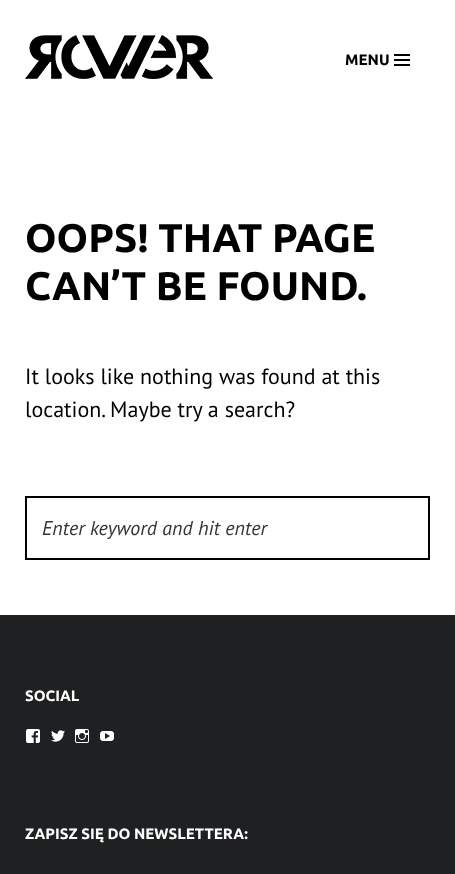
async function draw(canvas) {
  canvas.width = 455;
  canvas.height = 874;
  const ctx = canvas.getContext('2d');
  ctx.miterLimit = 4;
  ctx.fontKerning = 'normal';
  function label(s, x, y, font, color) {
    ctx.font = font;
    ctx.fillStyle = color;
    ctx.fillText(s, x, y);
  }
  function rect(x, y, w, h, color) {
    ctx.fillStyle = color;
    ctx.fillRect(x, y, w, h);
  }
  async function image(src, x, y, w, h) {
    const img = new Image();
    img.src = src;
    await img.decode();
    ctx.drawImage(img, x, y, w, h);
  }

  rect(0, 0, 455, 874, '#fff');
  await image('assets/img1.png', 25, 35, 188, 44);
  label('MENU', 345, 65, 'bold 15px Ubuntu', '#000');
  await image('assets/img2.png', 394, 54, 16, 12);
  label('OOPS! THAT PAGE', 25, 252, 'bold 40px Ubuntu', '#000');
  label('CAN’T BE FOUND.', 25, 300, 'bold 40px Ubuntu', '#000');
  label('It looks like nothing was found at this', 25, 384, '22px PT Sans', '#000');
  label('location. Maybe try a search?', 25, 417, '22px PT Sans', '#000');
  ctx.strokeStyle = '#000';
  ctx.lineWidth = 2;
  ctx.strokeRect(26, 497, 403, 62);
  label('Enter keyword and hit enter', 42, 535, 'italic 20px PT Sans', '#353535');
  rect(0, 615, 455, 259, '#1f2021');
  label('SOCIAL', 25, 701, 'bold 15px Ubuntu', '#fff');
  await image('assets/img3.png', 26, 729, 14, 14);
  await image('assets/img4.png', 51, 730, 14, 12);
  await image('assets/img5.png', 75, 729, 14, 14);
  await image('assets/img6.png', 100, 731, 14, 10);
  label('ZAPISZ SIĘ DO NEWSLETTERA:', 25, 839, 'bold 15px Ubuntu', '#fff');
}

draw(document.querySelector('canvas'));
